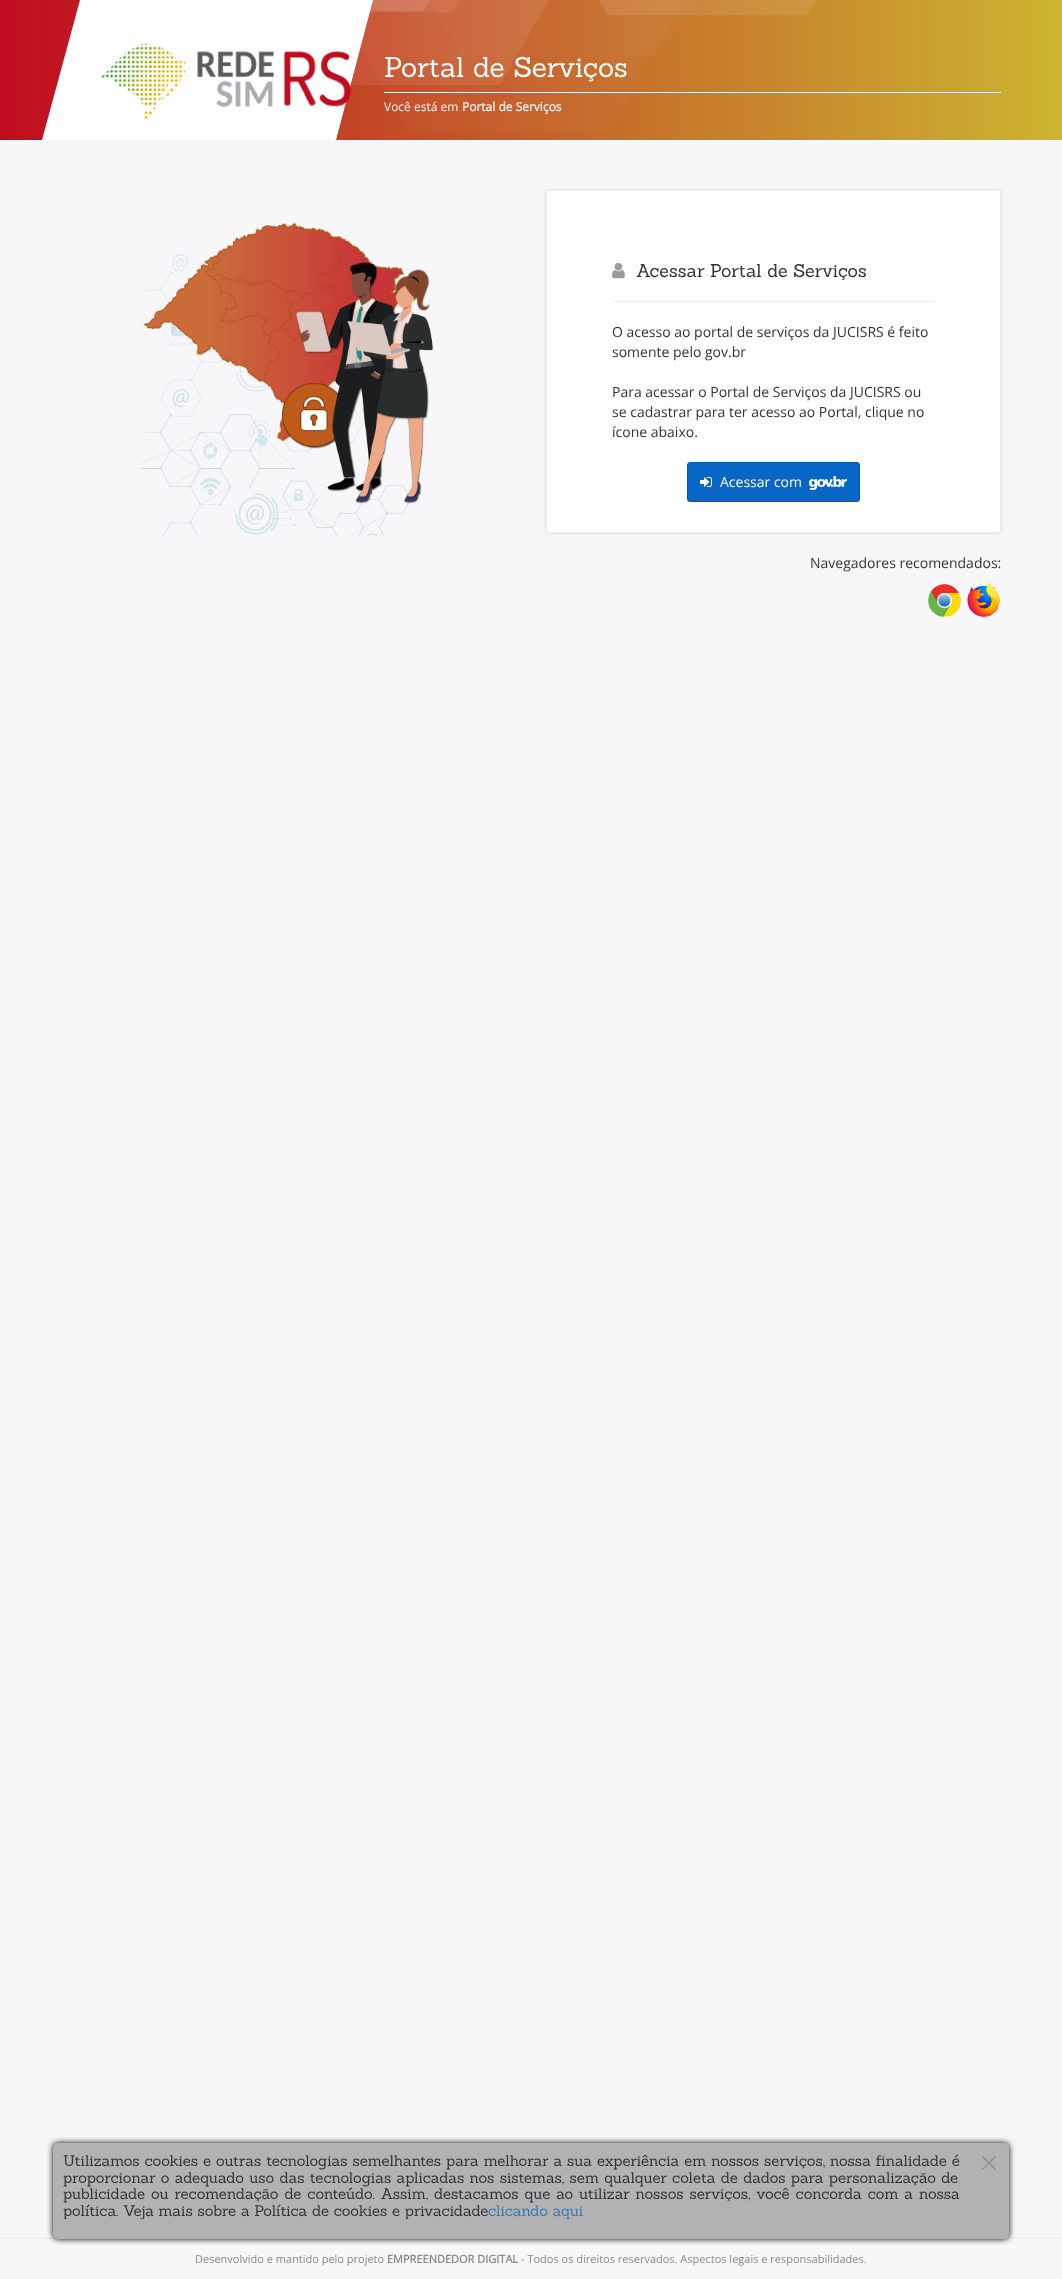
async function draw(canvas) {
  canvas.width = 1062;
  canvas.height = 2279;
  const ctx = canvas.getContext('2d');
  ctx.miterLimit = 4;
  ctx.fontKerning = 'normal';
  function label(s, x, y, font, color) {
    ctx.font = font;
    ctx.fillStyle = color;
    ctx.fillText(s, x, y);
  }
  function rect(x, y, w, h, color) {
    ctx.fillStyle = color;
    ctx.fillRect(x, y, w, h);
  }
  function roundedRect(x, y, w, h, r, color) {
    ctx.fillStyle = color;
    ctx.beginPath();
    ctx.roundRect(x, y, w, h, r);
    ctx.fill();
  }
  async function image(src, x, y, w, h) {
    const img = new Image();
    img.src = src;
    await img.decode();
    ctx.drawImage(img, x, y, w, h);
  }
  let gradient, path;

  rect(0, 0, 1062, 2279, '#f7f7f9');
  gradient = ctx.createLinearGradient(0, 70, 1062, 70);
  gradient.addColorStop(0, '#bf0c1f');
  gradient.addColorStop(1, '#ccb531');
  ctx.fillStyle = gradient;
  ctx.fillRect(0, 0, 1062, 140);
  ctx.fillStyle = '#fff';
  path = new Path2D('M80 0H373L336 140H42Z');
  ctx.fill(path);
  rect(384, 92, 617, 1, '#eee');
  label('Portal de Serviços', 384, 77, '28px Sanchez', '#fff');
  label('Você está em', 384, 111, '12px Open Sans', '#fff');
  label('Portal de Serviços', 462, 111, 'bold 12px Open Sans', '#eee');
  await image('assets/img1.png', 350, 0, 466, 132);
  await image('assets/img2.png', 101, 43, 250, 77);
  await image('assets/img3.png', 141, 222, 292, 315);
  ctx.fillStyle = '#46464633';
  ctx.filter = 'blur(1.5px)';
  ctx.beginPath();
  ctx.roundRect(546, 190, 455, 343, 2);
  ctx.fill();
  ctx.filter = 'none';
  ctx.fillStyle = '#fff';
  ctx.beginPath();
  ctx.roundRect(546.5, 190.5, 454, 342, 1.5);
  ctx.fill();
  ctx.strokeStyle = '#eee';
  ctx.stroke();
  await image('assets/img4.png', 612, 262, 13, 17);
  label('Acessar Portal de Serviços', 636, 277, '18px Sanchez', '#333');
  rect(612, 301, 323, 1, '#eee');
  label('O acesso ao portal de serviços da JUCISRS é feito', 612, 337, '14px Open Sans', '#333');
  label('somente pelo gov.br', 612, 357, '14px Open Sans', '#333');
  label('Para acessar o Portal de Serviços da JUCISRS ou', 612, 397, '14px Open Sans', '#333');
  label('se cadastrar para ter acesso ao Portal, clique no', 612, 417, '14px Open Sans', '#333');
  label('ícone abaixo.', 612, 437, '14px Open Sans', '#333');
  ctx.fillStyle = '#0766c6';
  ctx.beginPath();
  ctx.roundRect(687.5, 462.5, 172, 39, 2.5);
  ctx.fill();
  ctx.strokeStyle = '#0659ad';
  ctx.stroke();
  await image('assets/img5.png', 700, 477, 12, 10);
  label('Acessar com', 720, 487, '14px Open Sans', '#fff');
  await image('assets/img6.png', 809, 476, 38, 14);
  label('Navegadores recomendados:', 810, 568, '14px Open Sans', '#333');
  await image('assets/img7.png', 928, 584, 33, 33);
  await image('assets/img8.png', 967, 583, 33, 34);
  rect(0, 2238, 1062, 1, '#eee');
  ctx.fillStyle = '#000';
  ctx.filter = 'blur(3px)';
  ctx.beginPath();
  ctx.roundRect(53, 2143, 956, 96, 5);
  ctx.fill();
  ctx.filter = 'none';
  roundedRect(53, 2143, 956, 96, 5, '#b2b2b2');
  ctx.wordSpacing = '0.25px';
  label('Utilizamos cookies e outras tecnologias semelhantes para melhorar a sua experiência em nossos serviços, nossa finalidade é', 63, 2166, '15px Sanchez', '#333');
  ctx.wordSpacing = '0.6px';
  label('proporcionar o adequado uso das tecnologias aplicadas nos sistemas, sem qualquer coleta de dados para personalização de', 63, 2183, '15px Sanchez', '#333');
  ctx.wordSpacing = '1.25px';
  label('publicidade ou recomendação de conteúdo. Assim, destacamos que ao utilizar nossos serviços, você concorda com a nossa', 63, 2199, '15px Sanchez', '#333');
  ctx.save();
  ctx.beginPath();
  ctx.rect(63, 2153, 906, 66);
  ctx.clip();
  ctx.wordSpacing = '0px';
  label('política. Veja mais sobre a Política de cookies e privacidade', 63, 2216, '15px Sanchez', '#333');
  label('clicando aqui', 488, 2216, '15px Sanchez', '#337ab7');
  ctx.restore();
  await image('assets/img9.png', 982, 2156, 14, 14);
  ctx.wordSpacing = '0px';
  label('Desenvolvido e mantido pelo projeto', 195, 2263, '11px Open Sans', '#888');
  label('EMPREENDEDOR DIGITAL', 387, 2263, 'bold 11px Open Sans', '#888');
  label('- Todos os direitos reservados. Aspectos legais e responsabilidades.', 521, 2263, '11px Open Sans', '#888');
}

draw(document.querySelector('canvas'));
